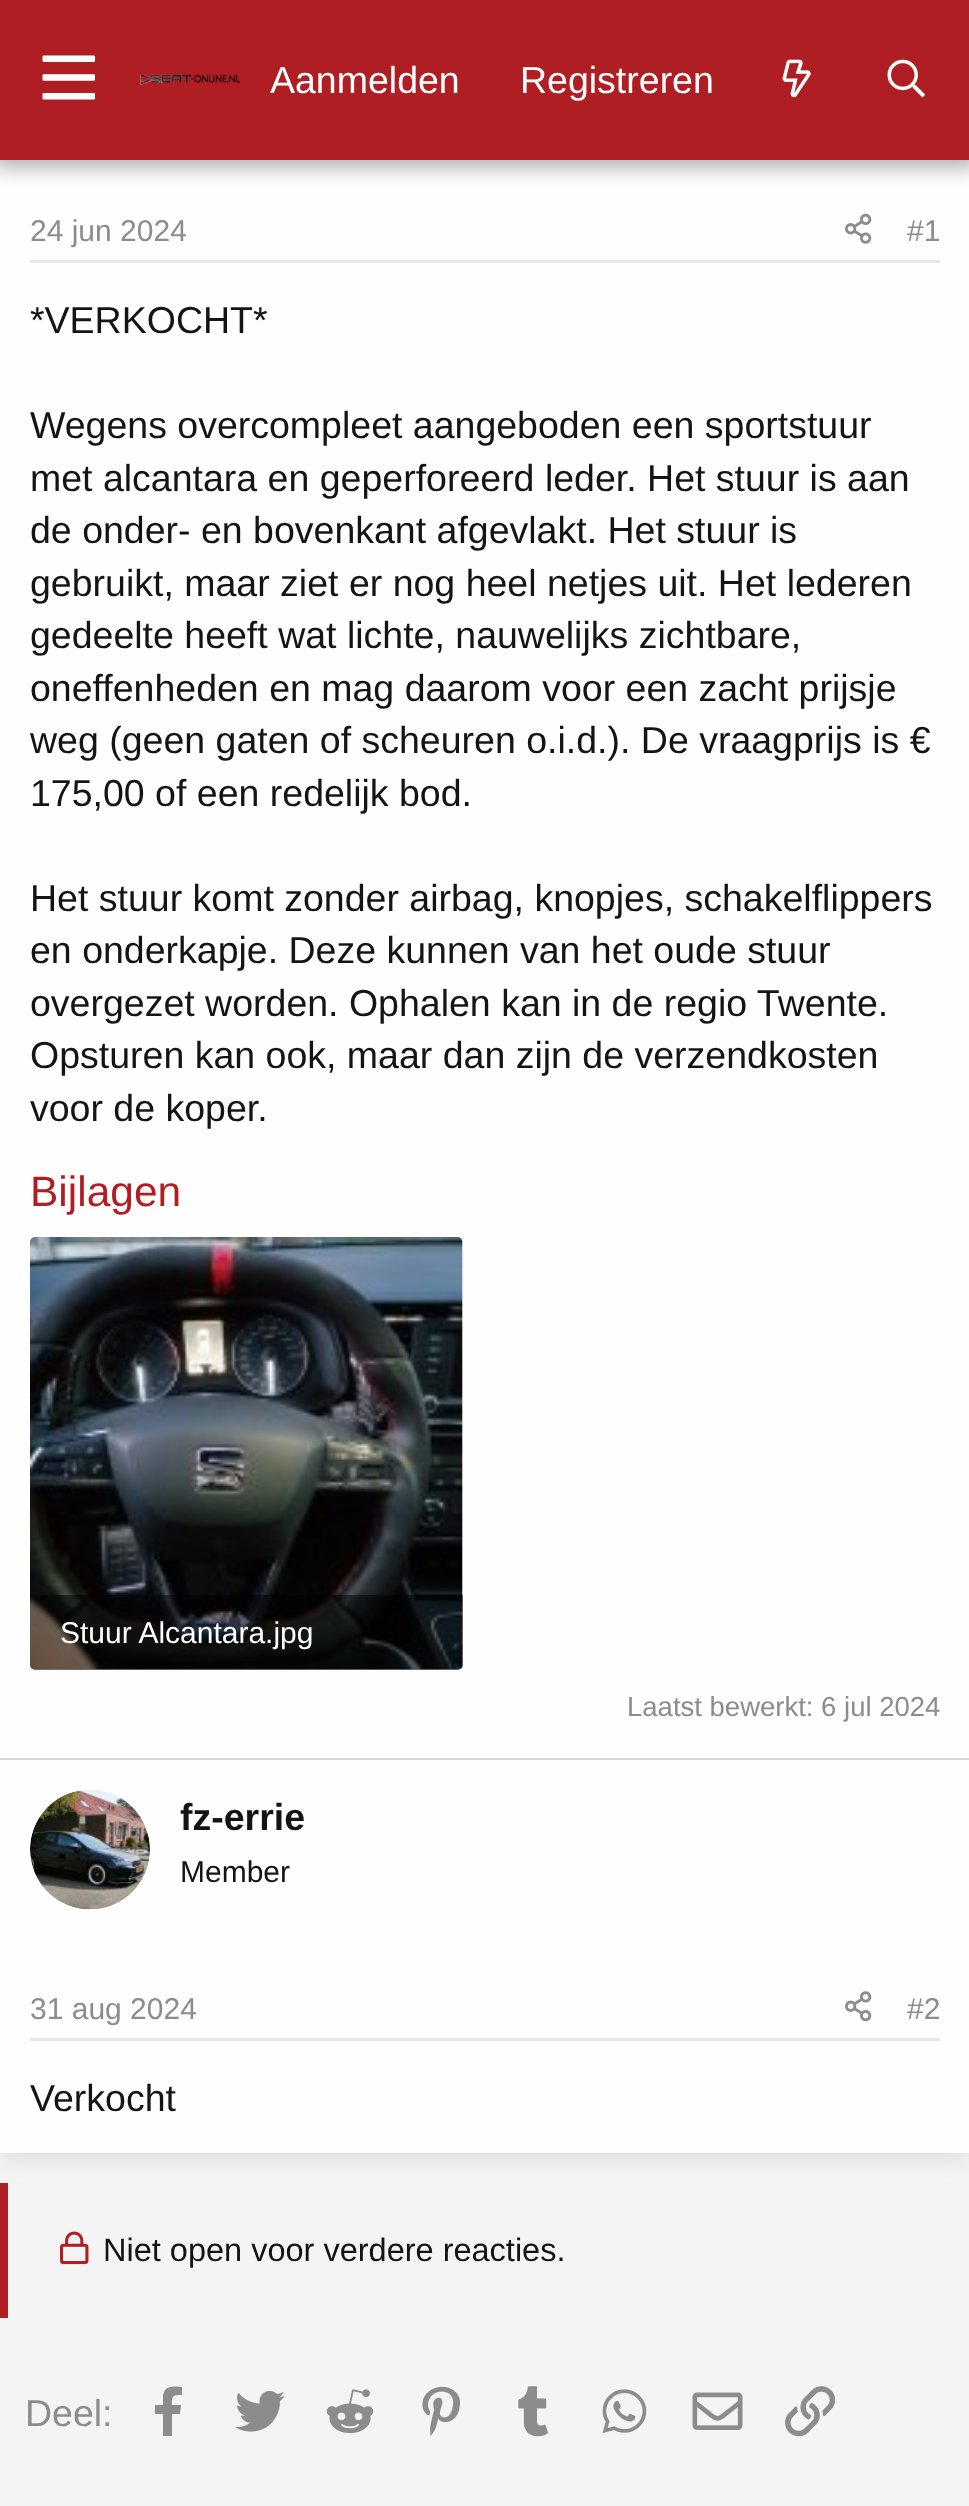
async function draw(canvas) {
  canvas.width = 969;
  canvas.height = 2506;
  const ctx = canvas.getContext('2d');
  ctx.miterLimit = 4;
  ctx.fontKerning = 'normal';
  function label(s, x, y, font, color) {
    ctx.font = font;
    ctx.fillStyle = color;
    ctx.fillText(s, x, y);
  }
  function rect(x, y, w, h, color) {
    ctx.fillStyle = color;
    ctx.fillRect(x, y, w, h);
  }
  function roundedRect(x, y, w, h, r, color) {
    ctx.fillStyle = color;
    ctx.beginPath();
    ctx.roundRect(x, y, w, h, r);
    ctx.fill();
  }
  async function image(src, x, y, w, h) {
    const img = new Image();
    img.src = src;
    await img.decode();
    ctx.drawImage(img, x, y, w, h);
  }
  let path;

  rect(0, 0, 969, 2506, '#f4f4f4');
  ctx.fillStyle = '#77777733';
  ctx.filter = 'blur(12.5px)';
  ctx.beginPath();
  ctx.rect(0, -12, 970, 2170);
  ctx.fill();
  ctx.filter = 'none';
  rect(0, 160, 969, 1598, '#fefefe');
  ctx.fillStyle = '#0000004d';
  ctx.filter = 'blur(10px)';
  ctx.beginPath();
  ctx.rect(-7, -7, 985, 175);
  ctx.fill();
  ctx.filter = 'none';
  rect(0, 0, 969, 160, '#af1e23');
  await image('assets/img1.png', 42, 55, 53, 45);
  await image('assets/img2.png', 139, 74, 101, 11);
  label('Aanmelden', 270, 93, '37.5px Liberation Sans', '#fff');
  label('Registreren', 520, 93, '37.5px Liberation Sans', '#fff');
  await image('assets/img3.png', 782, 59, 29, 39);
  await image('assets/img4.png', 887, 59, 38, 39);
  rect(30, 260, 910, 3, '#e7e7e7');
  label('24 jun 2024', 30, 241, '30px Liberation Sans', '#8c8c8c');
  await image('assets/img5.png', 845, 213, 27, 31);
  label('#1', 907, 241, '30px Liberation Sans', '#8c8c8c');
  label('*VERKOCHT*', 30, 333, '37.5px Liberation Sans', '#141414');
  label('Wegens overcompleet aangeboden een sportstuur', 30, 438, '37.5px Liberation Sans', '#141414');
  label('met alcantara en geperforeerd leder. Het stuur is aan', 30, 491, '37.5px Liberation Sans', '#141414');
  label('de onder- en bovenkant afgevlakt. Het stuur is', 30, 543, '37.5px Liberation Sans', '#141414');
  label('gebruikt, maar ziet er nog heel netjes uit. Het lederen', 30, 596, '37.5px Liberation Sans', '#141414');
  label('gedeelte heeft wat lichte, nauwelijks zichtbare,', 30, 648, '37.5px Liberation Sans', '#141414');
  label('oneffenheden en mag daarom voor een zacht prijsje', 30, 701, '37.5px Liberation Sans', '#141414');
  label('weg (geen gaten of scheuren o.i.d.). De vraagprijs is €', 30, 753, '37.5px Liberation Sans', '#141414');
  label('175,00 of een redelijk bod.', 30, 806, '37.5px Liberation Sans', '#141414');
  label('Het stuur komt zonder airbag, knopjes, schakelflippers', 30, 911, '37.5px Liberation Sans', '#141414');
  label('en onderkapje. Deze kunnen van het oude stuur', 30, 963, '37.5px Liberation Sans', '#141414');
  label('overgezet worden. Ophalen kan in de regio Twente.', 30, 1016, '37.5px Liberation Sans', '#141414');
  label('Opsturen kan ook, maar dan zijn de verzendkosten', 30, 1068, '37.5px Liberation Sans', '#141414');
  label('voor de koper.', 30, 1121, '37.5px Liberation Sans', '#141414');
  label('Bijlagen', 30, 1206, '42.5px Liberation Sans', '#af1e23');
  roundedRect(30, 1238, 433, 432, 5, '#f5f5f5');
  await image('assets/img6.png', 30, 1237, 433, 433);
  ctx.fillStyle = '#00000080';
  ctx.beginPath();
  ctx.roundRect(30, 1595, 433, 75, [0, 0, 5, 5]);
  ctx.fill();
  label('Stuur Alcantara.jpg', 60, 1643, '30px Liberation Sans', '#fff');
  label('Laatst bewerkt: 6 jul 2024', 627, 1716, '27.5px Liberation Sans', '#8c8c8c');
  rect(0, 1760, 969, 393, '#fefefe');
  rect(0, 1758, 969, 2, '#d8d8d8');
  await image('assets/img7.png', 30, 1790, 120, 120);
  label('fz-errie', 180, 1830, 'bold 37.5px Liberation Sans', '#141414');
  label('Member', 180, 1882, '30px Liberation Sans', '#141414');
  rect(30, 2038, 910, 3, '#e7e7e7');
  label('31 aug 2024', 30, 2019, '30px Liberation Sans', '#8c8c8c');
  await image('assets/img8.png', 845, 1991, 27, 31);
  label('#2', 907, 2019, '30px Liberation Sans', '#8c8c8c');
  label('Verkocht', 30, 2111, '37.5px Liberation Sans', '#141414');
  rect(0, 2183, 8, 135, '#af1e23');
  await image('assets/img9.png', 60, 2231, 29, 34);
  label('Niet open voor verdere reacties.', 103, 2261, '32.5px Liberation Sans', '#141414');
  label('Deel:', 25, 2426, '37.5px Liberation Sans', '#8c8c8c');
  path = new Path2D('M180 2414H172V2436H163V2414H155V2405H163V2396C164 2385 174 2386 182 2387V2395C172 2395 172 2396 172 2405H181Z');
  ctx.fill(path);
  await image('assets/img10.png', 235, 2390, 50, 42);
  await image('assets/img11.png', 326, 2389, 48, 45);
  await image('assets/img12.png', 422, 2386, 38, 50);
  await image('assets/img13.png', 518, 2386, 30, 51);
  await image('assets/img14.png', 602, 2389, 45, 44);
  await image('assets/img15.png', 692, 2392, 51, 38);
  await image('assets/img16.png', 785, 2386, 51, 51);
}

draw(document.querySelector('canvas'));
